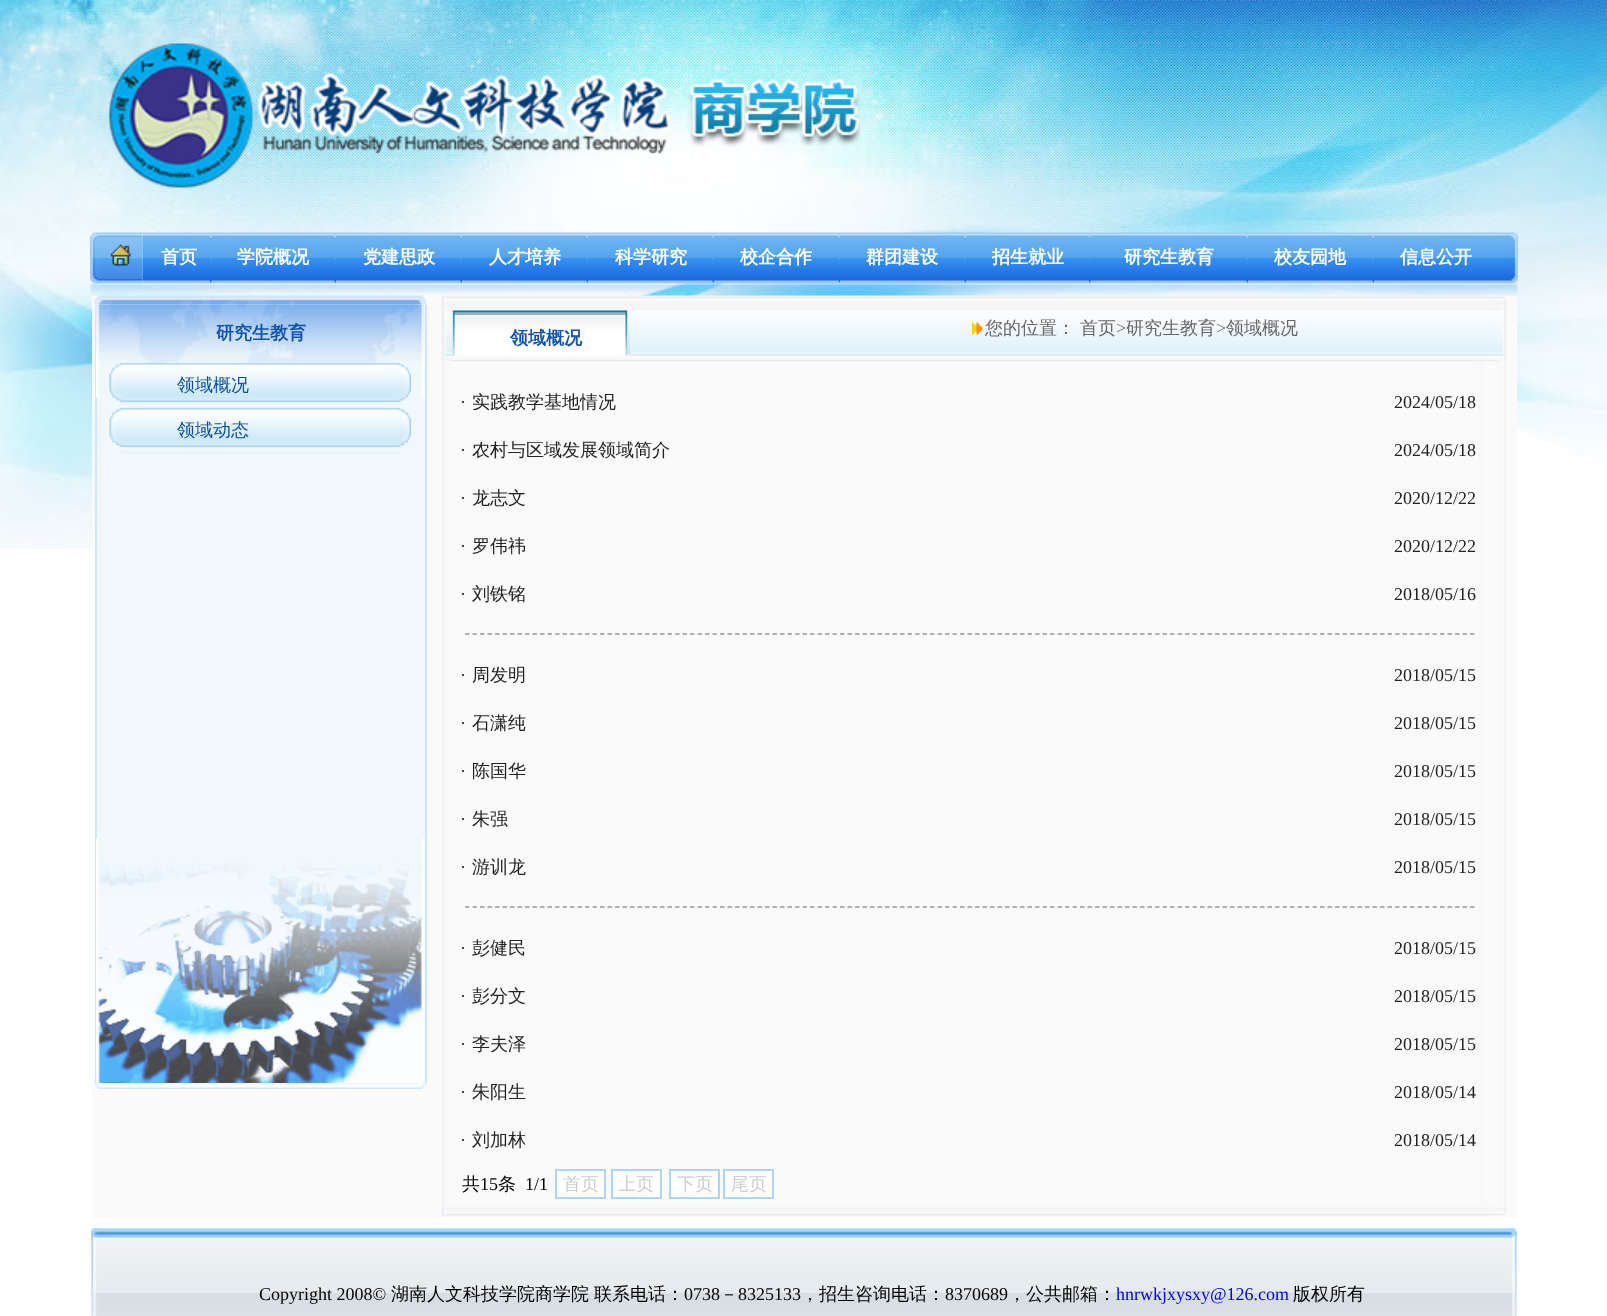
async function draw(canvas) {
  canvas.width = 1607;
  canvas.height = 1316;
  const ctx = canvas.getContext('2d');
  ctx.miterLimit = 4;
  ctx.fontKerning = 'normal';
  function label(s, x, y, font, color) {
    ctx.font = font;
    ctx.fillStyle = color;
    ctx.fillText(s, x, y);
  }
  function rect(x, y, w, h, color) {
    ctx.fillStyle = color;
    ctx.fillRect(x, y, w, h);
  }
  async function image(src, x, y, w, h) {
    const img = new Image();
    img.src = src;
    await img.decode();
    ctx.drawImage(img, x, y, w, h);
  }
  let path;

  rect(0, 0, 1607, 1316, '#fff');
  await image('assets/img1.png', 0, 0, 1607, 549);
  await image('assets/img2.png', 109, 43, 752, 145);
  await image('assets/img3.png', 90, 232, 53, 52);
  await image('assets/img4.png', 142, 232, 1361, 52);
  label('首页', 161, 263, 'bold 18px WenQuanYi Zen Hei', '#fff');
  await image('assets/img5.png', 210, 234, 2, 50);
  label('学院概况', 237, 263, 'bold 18px WenQuanYi Zen Hei', '#fff');
  await image('assets/img6.png', 334, 234, 2, 50);
  label('党建思政', 363, 263, 'bold 18px WenQuanYi Zen Hei', '#fff');
  await image('assets/img7.png', 460, 234, 2, 50);
  label('人才培养', 489, 263, 'bold 18px WenQuanYi Zen Hei', '#fff');
  await image('assets/img8.png', 586, 234, 2, 50);
  label('科学研究', 615, 263, 'bold 18px WenQuanYi Zen Hei', '#fff');
  await image('assets/img9.png', 712, 234, 2, 50);
  label('校企合作', 740, 263, 'bold 18px WenQuanYi Zen Hei', '#fff');
  await image('assets/img10.png', 838, 234, 2, 50);
  label('群团建设', 866, 263, 'bold 18px WenQuanYi Zen Hei', '#fff');
  await image('assets/img11.png', 964, 234, 2, 50);
  label('招生就业', 992, 263, 'bold 18px WenQuanYi Zen Hei', '#fff');
  await image('assets/img12.png', 1089, 234, 2, 50);
  label('研究生教育', 1124, 263, 'bold 18px WenQuanYi Zen Hei', '#fff');
  await image('assets/img13.png', 1246, 234, 2, 50);
  label('校友园地', 1274, 263, 'bold 18px WenQuanYi Zen Hei', '#fff');
  await image('assets/img14.png', 1372, 234, 2, 50);
  label('信息公开', 1400, 263, 'bold 18px WenQuanYi Zen Hei', '#fff');
  await image('assets/img15.png', 1503, 232, 15, 52);
  await image('assets/img16.png', 90, 283, 9, 12);
  await image('assets/img17.png', 99, 283, 1410, 12);
  await image('assets/img18.png', 1509, 283, 9, 12);
  rect(92, 296, 1425, 922, '#fafafa');
  rect(97, 305, 328, 534, '#f1f8fc');
  rect(95, 305, 2, 534, '#cee7ff');
  await image('assets/img20.png', 96, 304, 329, 94);
  await image('assets/img19.png', 94, 295, 332, 10);
  rect(425, 305, 2, 778, '#cee7ff');
  label('研究生教育', 216, 339, 'bold 18px WenQuanYi Zen Hei', '#1053ae');
  await image('assets/img21.png', 109, 363, 302, 90);
  label('领域概况', 177, 391, '500 18px WenQuanYi Zen Hei', '#0b4e9f');
  label('领域动态', 177, 436, '500 18px WenQuanYi Zen Hei', '#0b4e9f');
  rect(424, 839, 1, 244, '#f1f8fc');
  rect(95, 839, 1, 244, '#cee7ff');
  await image('assets/img22.png', 96, 838, 329, 245);
  await image('assets/img23.png', 94, 1083, 332, 6);
  await image('assets/img24.png', 441, 295, 1065, 67);
  label('领域概况', 510, 344, 'bold 18px WenQuanYi Zen Hei', '#1053ae');
  await image('assets/img25.png', 972, 322, 11, 13);
  label('您的位置：', 985, 334, '500 18px WenQuanYi Zen Hei', '#666');
  label('首页', 1080, 334, '500 18px WenQuanYi Zen Hei', '#666');
  label('>', 1116, 334, '18px Liberation Serif', '#666');
  label('研究生教育', 1126, 334, '500 18px WenQuanYi Zen Hei', '#666');
  label('>', 1216, 334, '18px Liberation Serif', '#666');
  label('领域概况', 1226, 334, '500 18px WenQuanYi Zen Hei', '#666');
  await image('assets/img26.png', 442, 361, 1064, 844);
  label('·', 460, 408, '18px Liberation Serif', '#222');
  label('实践教学基地情况', 472, 408, '500 18px WenQuanYi Zen Hei', '#222');
  label('2024/05/18', 1394, 408, '18px Liberation Serif', '#222');
  label('·', 460, 456, '18px Liberation Serif', '#222');
  label('农村与区域发展领域简介', 472, 456, '500 18px WenQuanYi Zen Hei', '#222');
  label('2024/05/18', 1394, 456, '18px Liberation Serif', '#222');
  label('·', 460, 504, '18px Liberation Serif', '#222');
  label('龙志文', 472, 504, '500 18px WenQuanYi Zen Hei', '#222');
  label('2020/12/22', 1394, 504, '18px Liberation Serif', '#222');
  label('·', 460, 552, '18px Liberation Serif', '#222');
  label('罗伟祎', 472, 552, '500 18px WenQuanYi Zen Hei', '#222');
  label('2020/12/22', 1394, 552, '18px Liberation Serif', '#222');
  label('·', 460, 600, '18px Liberation Serif', '#222');
  label('刘铁铭', 472, 600, '500 18px WenQuanYi Zen Hei', '#222');
  label('2018/05/16', 1394, 600, '18px Liberation Serif', '#222');
  path = new Path2D('M465 634H1474.5');
  ctx.strokeStyle = '#999';
  ctx.lineWidth = 1.5;
  ctx.setLineDash([4.5, 3]);
  ctx.stroke(path);
  label('·', 460, 681, '18px Liberation Serif', '#222');
  label('周发明', 472, 681, '500 18px WenQuanYi Zen Hei', '#222');
  label('2018/05/15', 1394, 681, '18px Liberation Serif', '#222');
  label('·', 460, 729, '18px Liberation Serif', '#222');
  label('石潇纯', 472, 729, '500 18px WenQuanYi Zen Hei', '#222');
  label('2018/05/15', 1394, 729, '18px Liberation Serif', '#222');
  label('·', 460, 777, '18px Liberation Serif', '#222');
  label('陈国华', 472, 777, '500 18px WenQuanYi Zen Hei', '#222');
  label('2018/05/15', 1394, 777, '18px Liberation Serif', '#222');
  label('·', 460, 825, '18px Liberation Serif', '#222');
  label('朱强', 472, 825, '500 18px WenQuanYi Zen Hei', '#222');
  label('2018/05/15', 1394, 825, '18px Liberation Serif', '#222');
  label('·', 460, 873, '18px Liberation Serif', '#222');
  label('游训龙', 472, 873, '500 18px WenQuanYi Zen Hei', '#222');
  label('2018/05/15', 1394, 873, '18px Liberation Serif', '#222');
  path = new Path2D('M465 907H1474.5');
  ctx.stroke(path);
  label('·', 460, 954, '18px Liberation Serif', '#222');
  label('彭健民', 472, 954, '500 18px WenQuanYi Zen Hei', '#222');
  label('2018/05/15', 1394, 954, '18px Liberation Serif', '#222');
  label('·', 460, 1002, '18px Liberation Serif', '#222');
  label('彭分文', 472, 1002, '500 18px WenQuanYi Zen Hei', '#222');
  label('2018/05/15', 1394, 1002, '18px Liberation Serif', '#222');
  label('·', 460, 1050, '18px Liberation Serif', '#222');
  label('李夫泽', 472, 1050, '500 18px WenQuanYi Zen Hei', '#222');
  label('2018/05/15', 1394, 1050, '18px Liberation Serif', '#222');
  label('·', 460, 1098, '18px Liberation Serif', '#222');
  label('朱阳生', 472, 1098, '500 18px WenQuanYi Zen Hei', '#222');
  label('2018/05/14', 1394, 1098, '18px Liberation Serif', '#222');
  label('·', 460, 1146, '18px Liberation Serif', '#222');
  label('刘加林', 472, 1146, '500 18px WenQuanYi Zen Hei', '#222');
  label('2018/05/14', 1394, 1146, '18px Liberation Serif', '#222');
  label('共', 462, 1190, '500 18px WenQuanYi Zen Hei', '#000');
  label('15', 480, 1190, '18px Liberation Serif', '#000');
  label('条', 498, 1190, '500 18px WenQuanYi Zen Hei', '#000');
  label('1/1', 525, 1190, '18px Liberation Serif', '#000');
  ctx.fillStyle = '#fff';
  ctx.beginPath();
  ctx.rect(556, 1170, 49, 28);
  ctx.fill();
  ctx.strokeStyle = '#afd5f5';
  ctx.lineWidth = 2;
  ctx.setLineDash([]);
  ctx.stroke();
  label('首页', 563, 1190, '500 18px WenQuanYi Zen Hei', '#ccc');
  ctx.fillStyle = '#fff';
  ctx.beginPath();
  ctx.rect(612, 1170, 49, 28);
  ctx.fill();
  ctx.stroke();
  label('上页', 618, 1190, '500 18px WenQuanYi Zen Hei', '#ccc');
  ctx.fillStyle = '#fff';
  ctx.beginPath();
  ctx.rect(670, 1170, 49, 28);
  ctx.fill();
  ctx.stroke();
  label('下页', 677, 1190, '500 18px WenQuanYi Zen Hei', '#ccc');
  ctx.fillStyle = '#fff';
  ctx.beginPath();
  ctx.rect(724, 1170, 49, 28);
  ctx.fill();
  ctx.stroke();
  label('尾页', 731, 1190, '500 18px WenQuanYi Zen Hei', '#ccc');
  await image('assets/img27.png', 441, 1205, 1065, 13);
  await image('assets/img28.png', 91, 1228, 1426, 88);
  await image('assets/img29.png', 91, 1228, 7, 88);
  label('Copyright 2008©', 259, 1300, '18px Liberation Serif', '#000');
  label('湖南人文科技学院商学院', 391, 1300, '500 18px WenQuanYi Zen Hei', '#000');
  label('联系电话：', 594, 1300, '500 18px WenQuanYi Zen Hei', '#000');
  label('0738', 684, 1300, '18px Liberation Serif', '#000');
  label('－', 720, 1300, '500 18px WenQuanYi Zen Hei', '#000');
  label('8325133', 738, 1300, '18px Liberation Serif', '#000');
  label('，招生咨询电话：', 801, 1300, '500 18px WenQuanYi Zen Hei', '#000');
  label('8370689', 945, 1300, '18px Liberation Serif', '#000');
  label('，公共邮箱：', 1008, 1300, '500 18px WenQuanYi Zen Hei', '#000');
  label('hnrwkjxysxy@126.com', 1116, 1300, '18px Liberation Serif', '#00e');
  label('版权所有', 1293, 1300, '500 18px WenQuanYi Zen Hei', '#000');
  await image('assets/img30.png', 1510, 1228, 7, 88);
}

draw(document.querySelector('canvas'));
